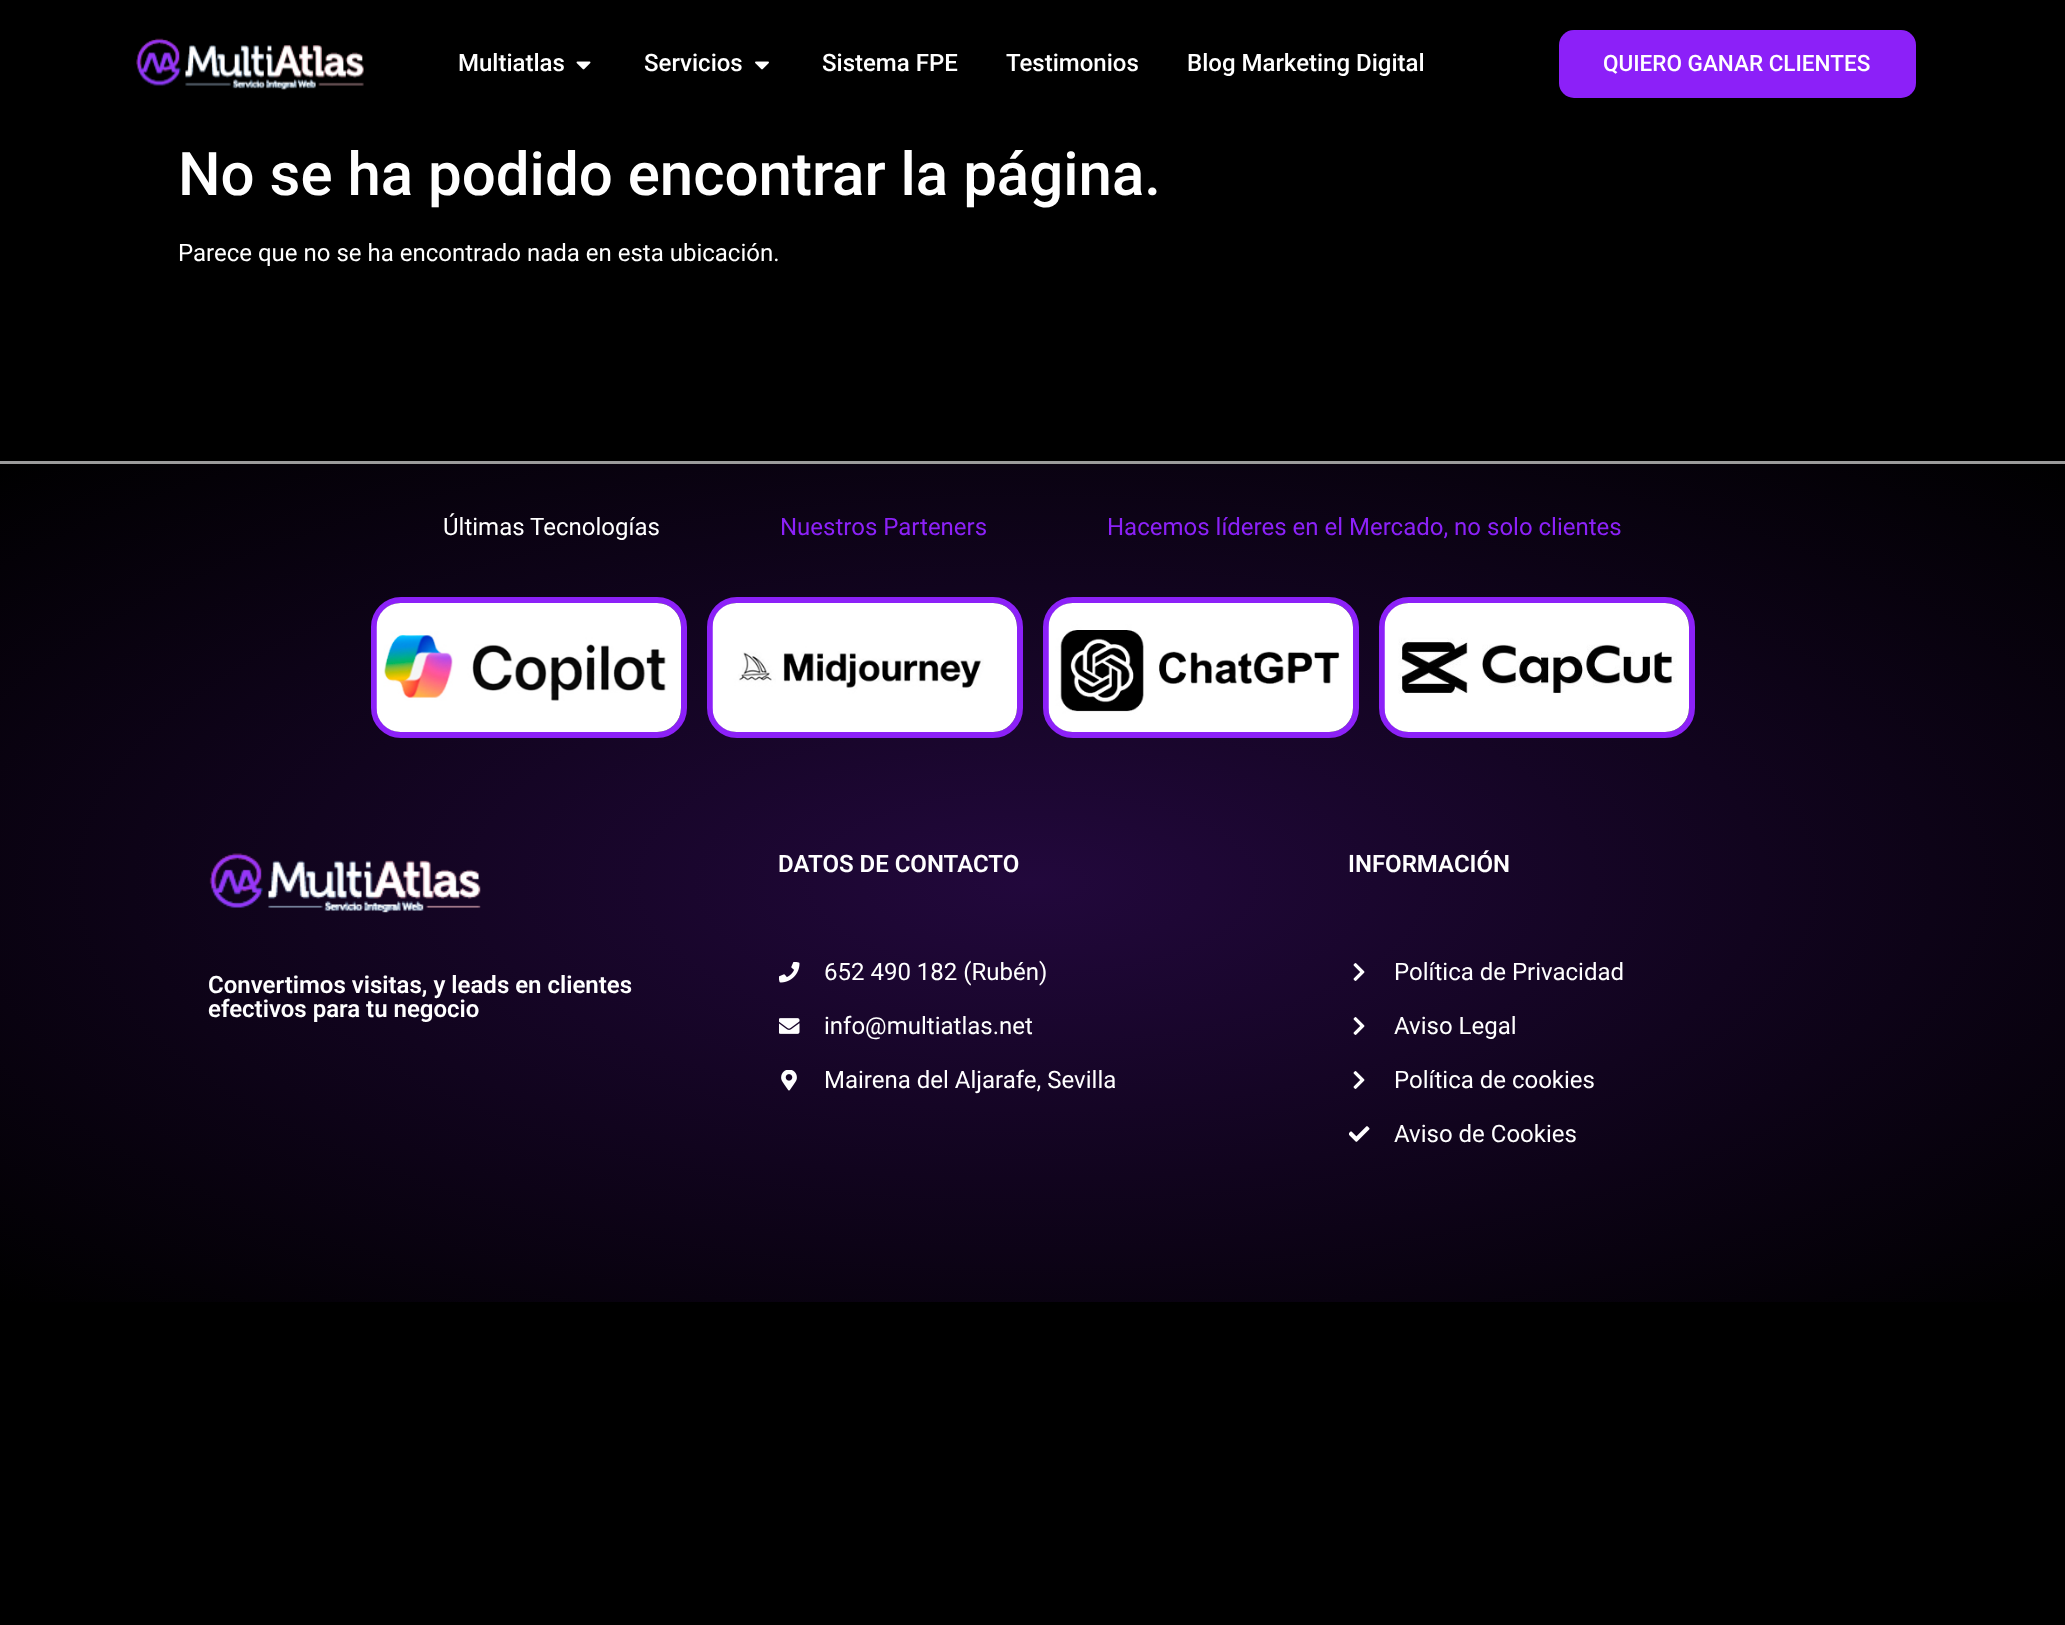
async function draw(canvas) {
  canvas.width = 2065;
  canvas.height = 1625;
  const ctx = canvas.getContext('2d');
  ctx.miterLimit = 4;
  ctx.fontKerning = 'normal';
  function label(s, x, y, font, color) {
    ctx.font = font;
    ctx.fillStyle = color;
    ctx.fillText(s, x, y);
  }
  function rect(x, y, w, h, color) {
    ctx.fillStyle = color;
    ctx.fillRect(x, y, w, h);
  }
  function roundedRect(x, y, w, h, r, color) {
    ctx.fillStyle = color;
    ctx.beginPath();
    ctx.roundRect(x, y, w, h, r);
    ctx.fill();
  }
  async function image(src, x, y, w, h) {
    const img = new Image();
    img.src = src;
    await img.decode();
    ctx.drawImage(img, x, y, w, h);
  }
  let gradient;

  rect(0, 0, 2065, 1625, '#000');
  await image('assets/img1.png', 136, 38, 228, 52);
  label('Multiatlas', 458, 71, '500 24px Roboto', '#fff');
  await image('assets/img2.png', 576, 61, 15, 9);
  label('Servicios', 644, 71, '500 24px Roboto', '#fff');
  await image('assets/img3.png', 755, 61, 14, 9);
  label('Sistema FPE', 822, 71, '500 24px Roboto', '#fff');
  label('Testimonios', 1006, 71, '500 24px Roboto', '#fff');
  label('Blog Marketing Digital', 1187, 71, '500 24px Roboto', '#fff');
  roundedRect(1559, 30, 357, 68, 15, '#8c20f8');
  label('QUIERO GANAR CLIENTES', 1603, 71, '500 22.5px Roboto', '#fff');
  label('No se ha podido encontrar la página.', 178, 195, '500 60px Roboto', '#fff');
  label('Parece que no se ha encontrado nada en esta ubicación.', 178, 261, '24px Roboto', '#fff');
  gradient = ctx.createRadialGradient(1033, 2175.49, 0, 1033, 2175.49, 1461);
  gradient.addColorStop(0, '#22083c');
  gradient.addColorStop(1, '#000');
  ctx.fillStyle = gradient;
  ctx.beginPath();
  ctx.rect(0, 464, 2065, 838);
  ctx.save();
  ctx.clip();
  ctx.scale(1, 593 / 1461);
  ctx.fillRect(0, 0, 2065, 4004);
  ctx.restore();
  label('Últimas Tecnologías', 443, 535, '24px Roboto', '#fff');
  label('Nuestros Parteners', 780, 535, '24px Roboto', '#8c21f8');
  label('Hacemos líderes en el Mercado, no solo clientes', 1107, 535, '24px Roboto', '#8c21f8');
  ctx.beginPath();
  ctx.roundRect(374, 600, 310, 135, 27);
  ctx.strokeStyle = '#8c21f8';
  ctx.lineWidth = 6;
  ctx.stroke();
  await image('assets/img4.png', 376, 603, 305, 129);
  ctx.beginPath();
  ctx.roundRect(710, 600, 310, 135, 27);
  ctx.stroke();
  await image('assets/img5.png', 712, 603, 305, 129);
  ctx.beginPath();
  ctx.roundRect(1046, 600, 310, 135, 27);
  ctx.stroke();
  await image('assets/img6.png', 1048, 603, 305, 129);
  ctx.beginPath();
  ctx.roundRect(1382, 600, 310, 135, 27);
  ctx.stroke();
  await image('assets/img7.png', 1384, 603, 305, 129);
  rect(0, 461, 2065, 3, '#9b9b9b');
  await image('assets/img8.png', 209, 853, 272, 60);
  label('Convertimos visitas, y leads en clientes', 208, 993, '600 24px Roboto', '#fff');
  label('efectivos para tu negocio', 208, 1017, '600 24px Roboto', '#fff');
  label('DATOS DE CONTACTO', 778, 872, '600 24px Roboto', '#fff');
  await image('assets/img9.png', 779, 962, 21, 21);
  label('652 490 182 (Rubén)', 824, 980, '24px Roboto', '#fff');
  await image('assets/img10.png', 779, 1018, 21, 16);
  label('info@multiatlas.net', 824, 1034, '24px Roboto', '#fff');
  await image('assets/img11.png', 781, 1070, 16, 21);
  label('Mairena del Aljarafe, Sevilla', 824, 1088, '24px Roboto', '#fff');
  label('INFORMACIÓN', 1348, 872, '600 24px Roboto', '#fff');
  await image('assets/img12.png', 1353, 963, 12, 18);
  label('Política de Privacidad', 1394, 980, '24px Roboto', '#fff');
  await image('assets/img13.png', 1353, 1017, 12, 18);
  label('Aviso Legal', 1394, 1034, '24px Roboto', '#fff');
  await image('assets/img14.png', 1353, 1071, 12, 18);
  label('Política de cookies', 1394, 1088, '24px Roboto', '#fff');
  await image('assets/img15.png', 1349, 1126, 21, 16);
  label('Aviso de Cookies', 1394, 1142, '24px Roboto', '#fff');
}

draw(document.querySelector('canvas'));
